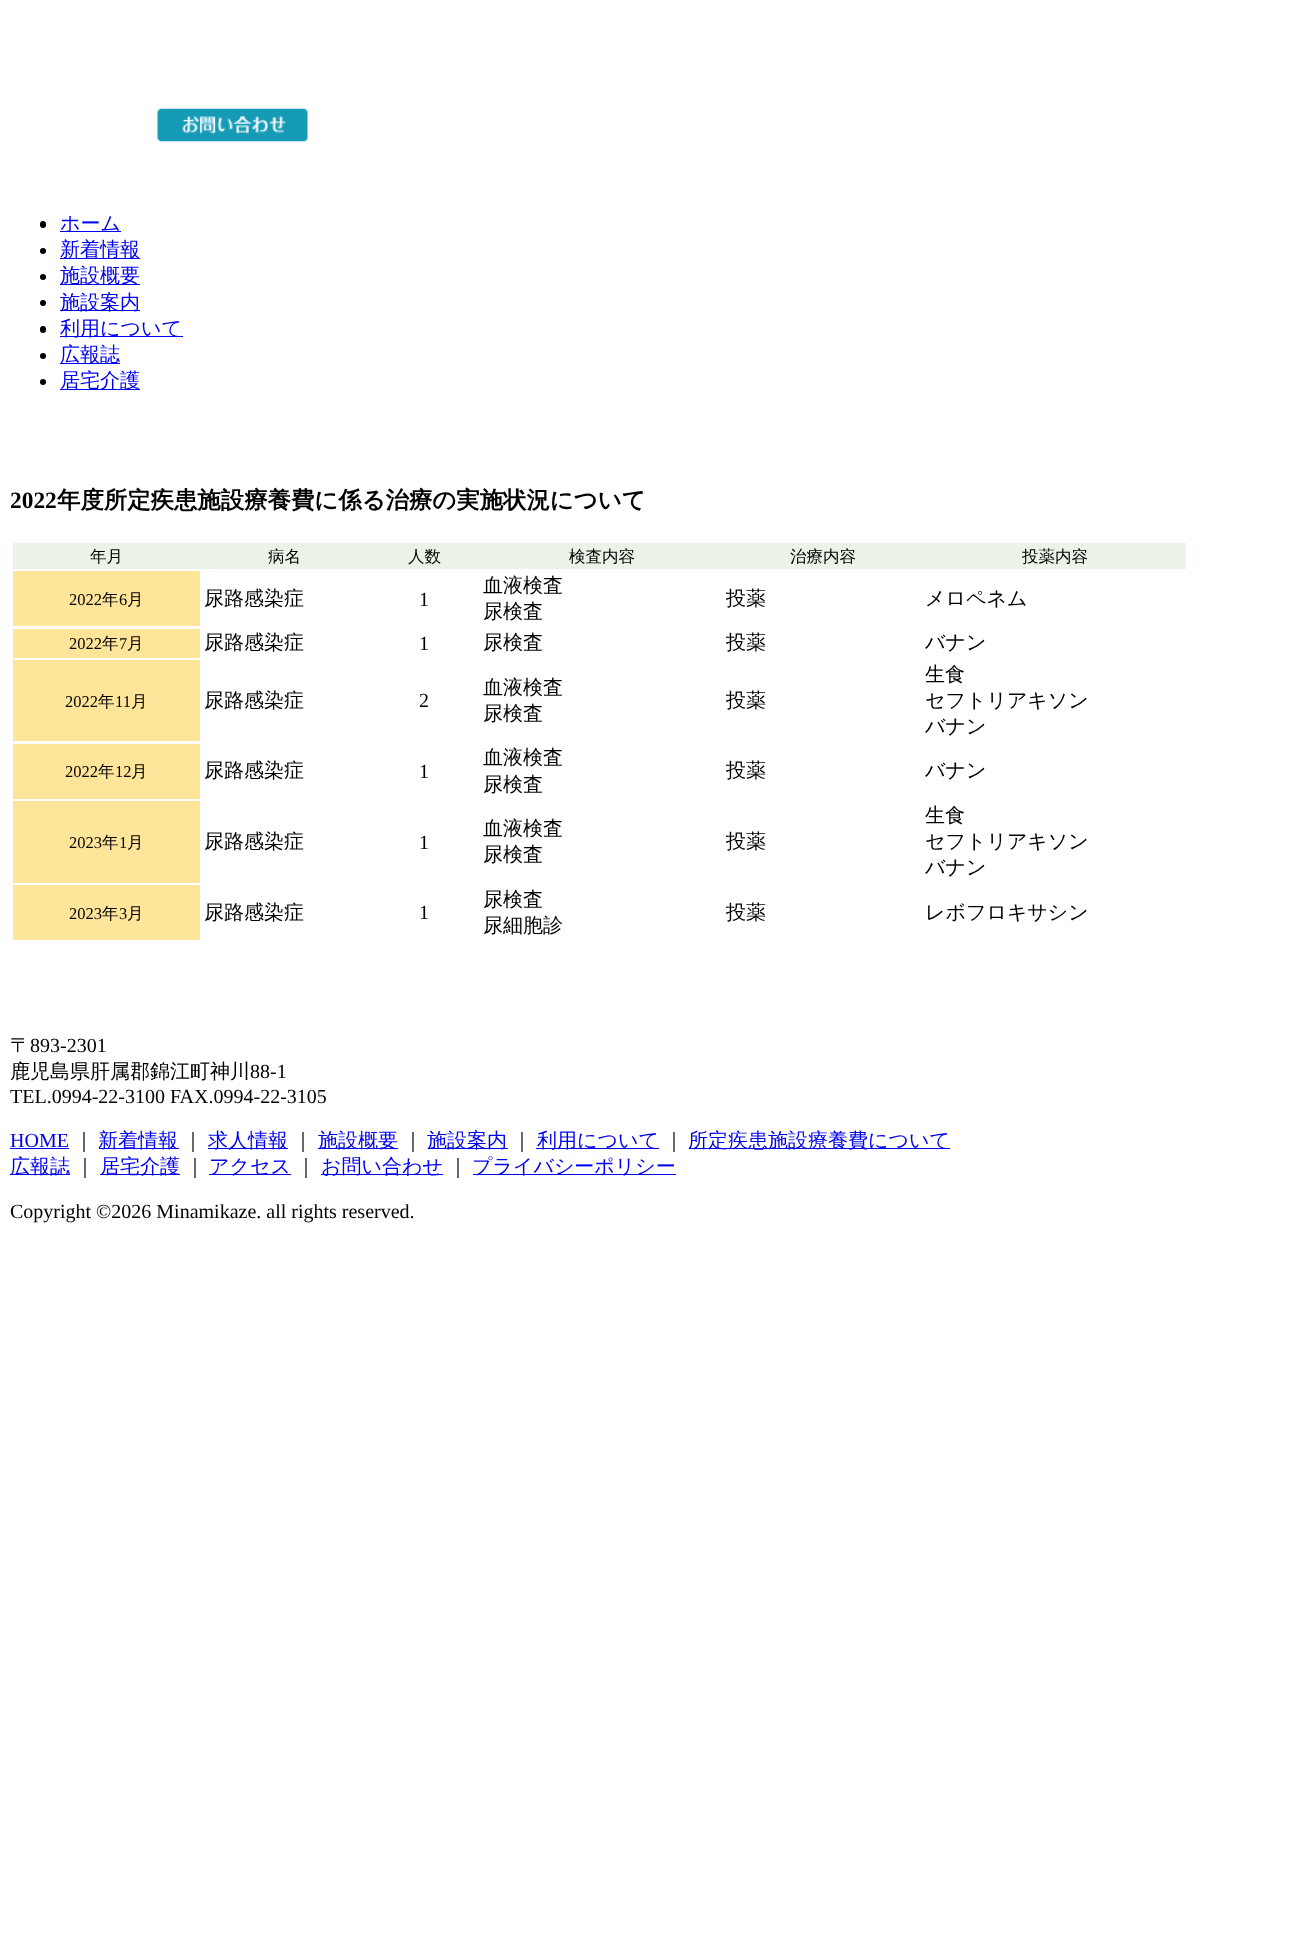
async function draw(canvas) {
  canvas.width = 1293;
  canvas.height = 1948;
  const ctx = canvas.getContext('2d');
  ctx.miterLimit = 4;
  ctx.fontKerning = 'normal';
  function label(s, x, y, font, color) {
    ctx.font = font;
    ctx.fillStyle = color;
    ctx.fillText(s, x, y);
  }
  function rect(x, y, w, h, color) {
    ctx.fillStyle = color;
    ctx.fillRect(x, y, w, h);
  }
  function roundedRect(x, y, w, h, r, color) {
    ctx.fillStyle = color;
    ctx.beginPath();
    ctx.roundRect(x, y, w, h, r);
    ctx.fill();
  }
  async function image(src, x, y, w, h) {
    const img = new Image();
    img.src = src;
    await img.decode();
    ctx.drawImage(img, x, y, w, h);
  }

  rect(0, 0, 1293, 1948, '#fff');
  await image('assets/img1.png', 157, 108, 151, 34);
  roundedRect(40, 221, 6, 7, 3, '#000');
  rect(60, 231, 61, 1, '#00e');
  label('ホーム', 60, 230, '500 20px WenQuanYi Zen Hei', '#00e');
  ctx.fillStyle = '#000';
  ctx.beginPath();
  ctx.arc(43, 251, 3, 0, 2 * Math.PI);
  ctx.fill();
  rect(60, 258, 80, 1, '#00e');
  label('新着情報', 60, 256, '500 20px WenQuanYi Zen Hei', '#00e');
  ctx.fillStyle = '#000';
  ctx.beginPath();
  ctx.arc(43, 277, 3, 0, 2 * Math.PI);
  ctx.fill();
  rect(60, 284, 80, 1, '#00e');
  label('施設概要', 60, 282, '500 20px WenQuanYi Zen Hei', '#00e');
  ctx.fillStyle = '#000';
  ctx.beginPath();
  ctx.arc(43, 303, 3, 0, 2 * Math.PI);
  ctx.fill();
  rect(60, 310, 80, 1, '#00e');
  label('施設案内', 60, 309, '500 20px WenQuanYi Zen Hei', '#00e');
  roundedRect(40, 326, 6, 7, 3, '#000');
  rect(60, 336, 123, 1, '#00e');
  label('利用について', 60, 335, '500 20px WenQuanYi Zen Hei', '#00e');
  ctx.fillStyle = '#000';
  ctx.beginPath();
  ctx.arc(43, 356, 3, 0, 2 * Math.PI);
  ctx.fill();
  rect(60, 363, 60, 1, '#00e');
  label('広報誌', 60, 361, '500 20px WenQuanYi Zen Hei', '#00e');
  ctx.fillStyle = '#000';
  ctx.beginPath();
  ctx.arc(43, 382, 3, 0, 2 * Math.PI);
  ctx.fill();
  rect(60, 389, 80, 1, '#00e');
  label('居宅介護', 60, 387, '500 20px WenQuanYi Zen Hei', '#00e');
  label('2022', 10, 508, 'bold 23.4px Liberation Serif', '#000');
  label('年度所定疾患施設療養費に係る治療の実施状況について', 57, 508, 'bold 23.4px WenQuanYi Zen Hei', '#000');
  rect(13, 543, 1173, 26, '#ebf2e6');
  label('年月', 90, 562, '500 16.5px WenQuanYi Zen Hei', '#000');
  label('病名', 268, 562, '500 16.5px WenQuanYi Zen Hei', '#000');
  label('人数', 408, 562, '500 16.5px WenQuanYi Zen Hei', '#000');
  label('検査内容', 569, 562, '500 16.5px WenQuanYi Zen Hei', '#000');
  label('治療内容', 790, 562, '500 16.5px WenQuanYi Zen Hei', '#000');
  label('投薬内容', 1022, 562, '500 16.5px WenQuanYi Zen Hei', '#000');
  rect(13, 571, 187, 55, '#ffe599');
  label('2022', 69, 605, '16.5px Liberation Serif', '#000');
  label('年', 102, 605, '500 16.5px WenQuanYi Zen Hei', '#000');
  label('6', 119, 605, '16.5px Liberation Serif', '#000');
  label('月', 127, 605, '500 16.5px WenQuanYi Zen Hei', '#000');
  label('尿路感染症', 204, 605, '500 20px WenQuanYi Zen Hei', '#000');
  label('1', 419, 606, '20px Liberation Serif', '#000');
  label('血液検査', 483, 592, '500 20px WenQuanYi Zen Hei', '#000');
  label('尿検査', 483, 618, '500 20px WenQuanYi Zen Hei', '#000');
  label('投薬', 726, 605, '500 20px WenQuanYi Zen Hei', '#000');
  label('メロペネム', 925, 605, '500 20px WenQuanYi Zen Hei', '#000');
  rect(13, 629, 187, 29, '#ffe599');
  label('2022', 69, 649, '16.5px Liberation Serif', '#000');
  label('年', 102, 649, '500 16.5px WenQuanYi Zen Hei', '#000');
  label('7', 119, 649, '16.5px Liberation Serif', '#000');
  label('月', 127, 649, '500 16.5px WenQuanYi Zen Hei', '#000');
  label('尿路感染症', 204, 649, '500 20px WenQuanYi Zen Hei', '#000');
  label('1', 419, 650, '20px Liberation Serif', '#000');
  label('尿検査', 483, 649, '500 20px WenQuanYi Zen Hei', '#000');
  label('投薬', 726, 649, '500 20px WenQuanYi Zen Hei', '#000');
  label('バナン', 925, 649, '500 20px WenQuanYi Zen Hei', '#000');
  rect(13, 660, 187, 81, '#ffe599');
  label('2022', 65, 707, '16.5px Liberation Serif', '#000');
  label('年', 98, 707, '500 16.5px WenQuanYi Zen Hei', '#000');
  label('11', 115, 707, '16.5px Liberation Serif', '#000');
  label('月', 131, 707, '500 16.5px WenQuanYi Zen Hei', '#000');
  label('尿路感染症', 204, 707, '500 20px WenQuanYi Zen Hei', '#000');
  label('2', 419, 707, '20px Liberation Serif', '#000');
  label('血液検査', 483, 694, '500 20px WenQuanYi Zen Hei', '#000');
  label('尿検査', 483, 720, '500 20px WenQuanYi Zen Hei', '#000');
  label('投薬', 726, 707, '500 20px WenQuanYi Zen Hei', '#000');
  label('生食', 925, 681, '500 20px WenQuanYi Zen Hei', '#000');
  label('セフトリアキソン', 925, 707, '500 20px WenQuanYi Zen Hei', '#000');
  label('バナン', 925, 733, '500 20px WenQuanYi Zen Hei', '#000');
  rect(13, 744, 187, 55, '#ffe599');
  label('2022', 65, 777, '16.5px Liberation Serif', '#000');
  label('年', 98, 777, '500 16.5px WenQuanYi Zen Hei', '#000');
  label('12', 115, 777, '16.5px Liberation Serif', '#000');
  label('月', 131, 777, '500 16.5px WenQuanYi Zen Hei', '#000');
  label('尿路感染症', 204, 777, '500 20px WenQuanYi Zen Hei', '#000');
  label('1', 419, 778, '20px Liberation Serif', '#000');
  label('血液検査', 483, 764, '500 20px WenQuanYi Zen Hei', '#000');
  label('尿検査', 483, 791, '500 20px WenQuanYi Zen Hei', '#000');
  label('投薬', 726, 777, '500 20px WenQuanYi Zen Hei', '#000');
  label('バナン', 925, 777, '500 20px WenQuanYi Zen Hei', '#000');
  rect(13, 801, 187, 82, '#ffe599');
  label('2023', 69, 848, '16.5px Liberation Serif', '#000');
  label('年', 102, 848, '500 16.5px WenQuanYi Zen Hei', '#000');
  label('1', 119, 848, '16.5px Liberation Serif', '#000');
  label('月', 127, 848, '500 16.5px WenQuanYi Zen Hei', '#000');
  label('尿路感染症', 204, 848, '500 20px WenQuanYi Zen Hei', '#000');
  label('1', 419, 849, '20px Liberation Serif', '#000');
  label('血液検査', 483, 835, '500 20px WenQuanYi Zen Hei', '#000');
  label('尿検査', 483, 861, '500 20px WenQuanYi Zen Hei', '#000');
  label('投薬', 726, 848, '500 20px WenQuanYi Zen Hei', '#000');
  label('生食', 925, 822, '500 20px WenQuanYi Zen Hei', '#000');
  label('セフトリアキソン', 925, 848, '500 20px WenQuanYi Zen Hei', '#000');
  label('バナン', 925, 874, '500 20px WenQuanYi Zen Hei', '#000');
  rect(13, 885, 187, 55, '#ffe599');
  label('2023', 69, 919, '16.5px Liberation Serif', '#000');
  label('年', 102, 919, '500 16.5px WenQuanYi Zen Hei', '#000');
  label('3', 119, 919, '16.5px Liberation Serif', '#000');
  label('月', 127, 919, '500 16.5px WenQuanYi Zen Hei', '#000');
  label('尿路感染症', 204, 919, '500 20px WenQuanYi Zen Hei', '#000');
  label('1', 419, 919, '20px Liberation Serif', '#000');
  label('尿検査', 483, 906, '500 20px WenQuanYi Zen Hei', '#000');
  label('尿細胞診', 483, 932, '500 20px WenQuanYi Zen Hei', '#000');
  label('投薬', 726, 919, '500 20px WenQuanYi Zen Hei', '#000');
  label('レボフロキサシン', 925, 919, '500 20px WenQuanYi Zen Hei', '#000');
  label('〒', 10, 1052, '500 20px WenQuanYi Zen Hei', '#000');
  label('893-2301', 30, 1052, '20px Liberation Serif', '#000');
  label('鹿児島県肝属郡錦江町神川', 10, 1078, '500 20px WenQuanYi Zen Hei', '#000');
  label('88-1', 250, 1078, '20px Liberation Serif', '#000');
  label('TEL.0994-22-3100 FAX.0994-22-3105', 10, 1103, '20px Liberation Serif', '#000');
  label('HOME', 10, 1147, '20px Liberation Serif', '#00e');
  rect(10, 1148, 59, 1, '#00e');
  label('｜', 74, 1147, '500 20px WenQuanYi Zen Hei', '#000');
  rect(99, 1148, 80, 1, '#00e');
  label('新着情報', 98, 1147, '500 20px WenQuanYi Zen Hei', '#00e');
  label('｜', 183, 1147, '500 20px WenQuanYi Zen Hei', '#000');
  rect(208, 1148, 80, 1, '#00e');
  label('求人情報', 208, 1147, '500 20px WenQuanYi Zen Hei', '#00e');
  label('｜', 293, 1147, '500 20px WenQuanYi Zen Hei', '#000');
  rect(318, 1148, 80, 1, '#00e');
  label('施設概要', 318, 1147, '500 20px WenQuanYi Zen Hei', '#00e');
  label('｜', 403, 1147, '500 20px WenQuanYi Zen Hei', '#000');
  rect(428, 1148, 80, 1, '#00e');
  label('施設案内', 427, 1147, '500 20px WenQuanYi Zen Hei', '#00e');
  label('｜', 512, 1147, '500 20px WenQuanYi Zen Hei', '#000');
  rect(536, 1148, 123, 1, '#00e');
  label('利用について', 537, 1147, '500 20px WenQuanYi Zen Hei', '#00e');
  label('｜', 664, 1147, '500 20px WenQuanYi Zen Hei', '#000');
  rect(689, 1148, 261, 1, '#00e');
  label('所定疾患施設療養費について', 688, 1147, '500 20px WenQuanYi Zen Hei', '#00e');
  rect(10, 1174, 60, 1, '#00e');
  label('広報誌', 10, 1173, '500 20px WenQuanYi Zen Hei', '#00e');
  label('｜', 75, 1173, '500 20px WenQuanYi Zen Hei', '#000');
  rect(100, 1174, 80, 1, '#00e');
  label('居宅介護', 100, 1173, '500 20px WenQuanYi Zen Hei', '#00e');
  label('｜', 185, 1173, '500 20px WenQuanYi Zen Hei', '#000');
  rect(209, 1174, 82, 1, '#00e');
  label('アクセス', 209, 1173, '500 20px WenQuanYi Zen Hei', '#00e');
  label('｜', 296, 1173, '500 20px WenQuanYi Zen Hei', '#000');
  rect(321, 1174, 122, 1, '#00e');
  label('お問い合わせ', 321, 1173, '500 20px WenQuanYi Zen Hei', '#00e');
  label('｜', 448, 1173, '500 20px WenQuanYi Zen Hei', '#000');
  rect(473, 1174, 203, 1, '#00e');
  label('プライバシーポリシー', 472, 1173, '500 20px WenQuanYi Zen Hei', '#00e');
  label('Copyright ©2026 Minamikaze. all rights reserved.', 10, 1218, '20px Liberation Serif', '#000');
}

draw(document.querySelector('canvas'));
